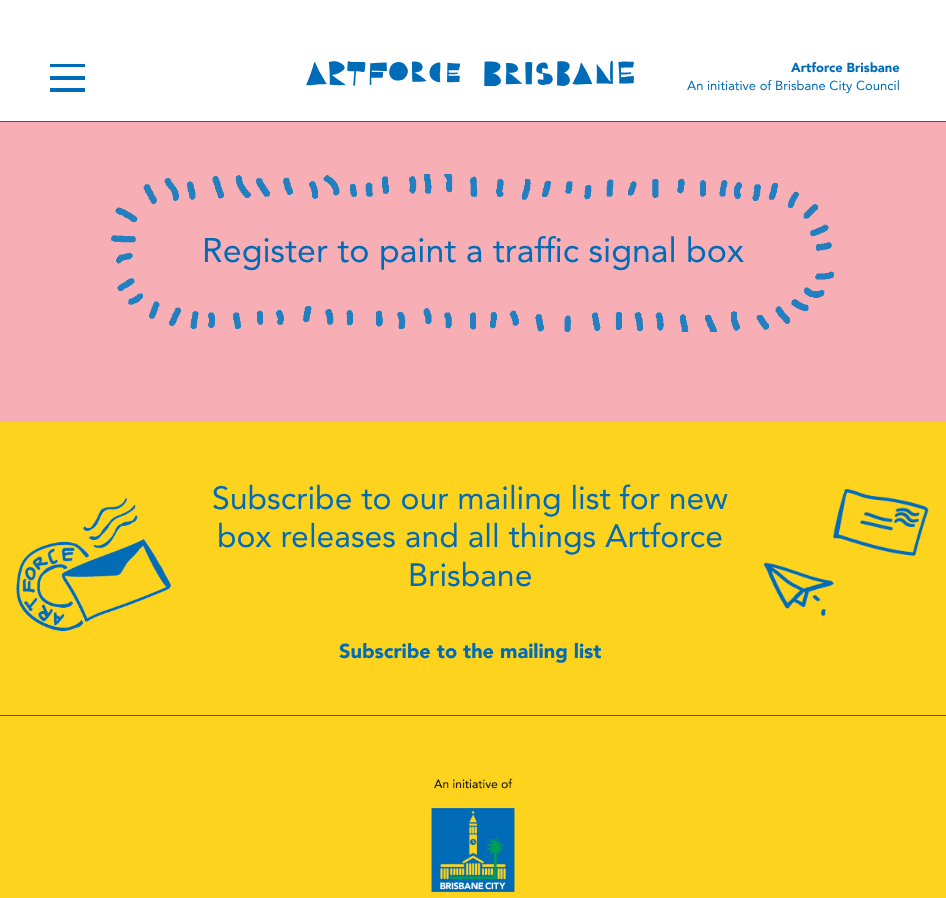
async function draw(canvas) {
  canvas.width = 946;
  canvas.height = 898;
  const ctx = canvas.getContext('2d');
  ctx.miterLimit = 4;
  ctx.fontKerning = 'normal';
  function label(s, x, y, font, color) {
    ctx.font = font;
    ctx.fillStyle = color;
    ctx.fillText(s, x, y);
  }
  function rect(x, y, w, h, color) {
    ctx.fillStyle = color;
    ctx.fillRect(x, y, w, h);
  }
  async function image(src, x, y, w, h) {
    const img = new Image();
    img.src = src;
    await img.decode();
    ctx.drawImage(img, x, y, w, h);
  }

  rect(0, 0, 946, 898, '#f7aeb5');
  rect(0, 0, 946, 121, '#fff');
  rect(0, 121, 946, 1, '#006bb6');
  rect(50, 64, 35, 3, '#006bb6');
  rect(50, 76, 35, 4, '#006bb6');
  rect(50, 88, 35, 4, '#006bb6');
  await image('assets/img1.png', 306, 61, 328, 26);
  label('Artforce Brisbane', 791, 72, '900 13px Avenir', '#006bb6');
  label('An initiative of Brisbane City Council', 687, 90, '13px Avenir', '#006bb6');
  await image('assets/img2.png', 111, 174, 723, 158);
  label('Register to paint a traffic signal box', 202, 262, '34px Avenir', '#006bb6');
  rect(0, 422, 946, 293, '#fed31e');
  rect(0, 715, 946, 1, '#006bb6');
  await image('assets/img3.png', 16, 498, 155, 134);
  label('Subscribe to our mailing list for new', 212, 509, '32px Avenir', '#006bb6');
  label('box releases and all things Artforce', 217, 547, '32px Avenir', '#006bb6');
  label('Brisbane', 408, 586, '32px Avenir', '#006bb6');
  label('Subscribe to the mailing list', 339, 658, '900 20px Avenir', '#006bb6');
  await image('assets/img4.png', 763, 489, 166, 128);
  rect(0, 716, 946, 182, '#fed31e');
  await image('assets/img5.png', 431, 778, 84, 114);
}

draw(document.querySelector('canvas'));
